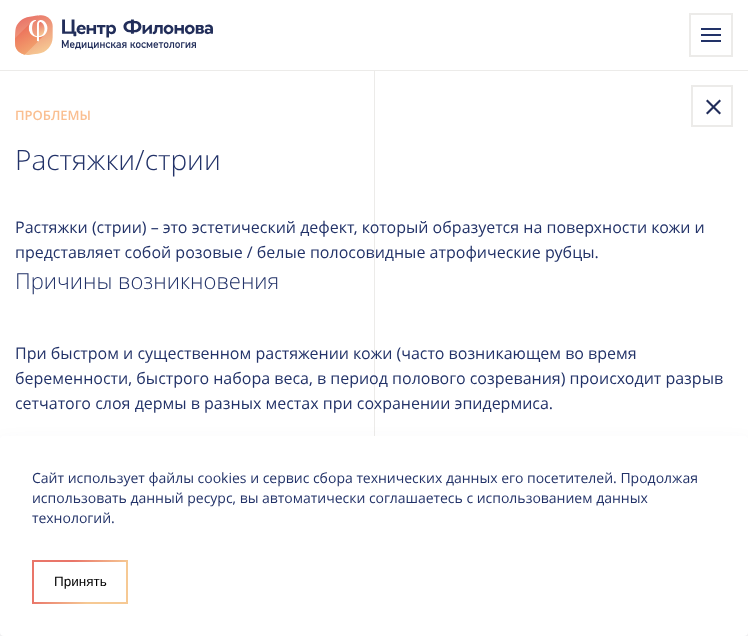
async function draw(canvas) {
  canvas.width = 748;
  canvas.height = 636;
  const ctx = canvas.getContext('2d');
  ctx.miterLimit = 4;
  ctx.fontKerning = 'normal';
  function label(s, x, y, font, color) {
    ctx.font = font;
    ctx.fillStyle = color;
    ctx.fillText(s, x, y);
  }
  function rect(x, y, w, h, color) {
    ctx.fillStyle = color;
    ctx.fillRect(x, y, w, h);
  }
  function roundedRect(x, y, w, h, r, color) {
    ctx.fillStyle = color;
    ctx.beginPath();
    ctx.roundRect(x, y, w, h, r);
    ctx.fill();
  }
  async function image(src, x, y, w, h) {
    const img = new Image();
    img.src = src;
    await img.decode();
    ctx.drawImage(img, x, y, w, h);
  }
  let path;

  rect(0, 0, 748, 636, '#fff');
  await image('assets/img1.png', 15, 15, 198, 40);
  ctx.strokeStyle = '#ecebe9';
  ctx.lineWidth = 2;
  ctx.strokeRect(690, 14, 42, 42);
  rect(701, 28, 20, 2, '#223268');
  rect(701, 34, 20, 2, '#223268');
  rect(701, 40, 20, 2, '#223268');
  rect(374, 70, 1, 366, '#ecebe9');
  rect(0, 70, 748, 1, '#ecebe9');
  ctx.strokeRect(692, 86, 40, 40);
  ctx.fillStyle = '#212d5a';
  path = new Path2D('M707.5 99.5L721 113L719.5 114.5L706 101Z');
  ctx.fill(path);
  path = new Path2D('M706 113L719.5 99.5L721 101L707.5 114.5Z');
  ctx.fill(path);
  label('ПРОБЛЕМЫ', 15, 120, '600 13px Open Sans', '#fabf91');
  label('Растяжки/стрии', 15, 170, '300 28px Open Sans', '#223268');
  label('Растяжки (стрии) – это эстетический дефект, который образуется на поверхности кожи и', 15, 233, '16px Open Sans', '#223268');
  label('представляет собой розовые / белые полосовидные атрофические рубцы.', 15, 258, '16px Open Sans', '#223268');
  label('Причины возникновения', 15, 289, '300 22px Open Sans', '#223268');
  label('При быстром и существенном растяжении кожи (часто возникающем во время', 15, 359, '16px Open Sans', '#223268');
  label('беременности, быстрого набора веса, в период полового созревания) происходит разрыв', 15, 384, '16px Open Sans', '#223268');
  label('сетчатого слоя дермы в разных местах при сохранении эпидермиса.', 15, 409, '16px Open Sans', '#223268');
  ctx.fillStyle = '#2f344429';
  ctx.filter = 'blur(12px)';
  ctx.beginPath();
  ctx.roundRect(0, 452, 748, 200, 4);
  ctx.fill();
  ctx.filter = 'none';
  roundedRect(0, 436, 748, 200, 4, '#fff');
  label('Сайт использует файлы cookies и сервис сбора технических данных его посетителей. Продолжая', 32, 483, '14px Open Sans', '#223268');
  label('использовать данный ресурс, вы автоматически соглашаетесь с использованием данных', 32, 503, '14px Open Sans', '#223268');
  label('технологий.', 32, 523, '14px Open Sans', '#223268');
  await image('assets/img2.png', 32, 560, 96, 44);
  label('Принять', 54, 586, '13.5px Liberation Sans', '#000');
}

draw(document.querySelector('canvas'));
